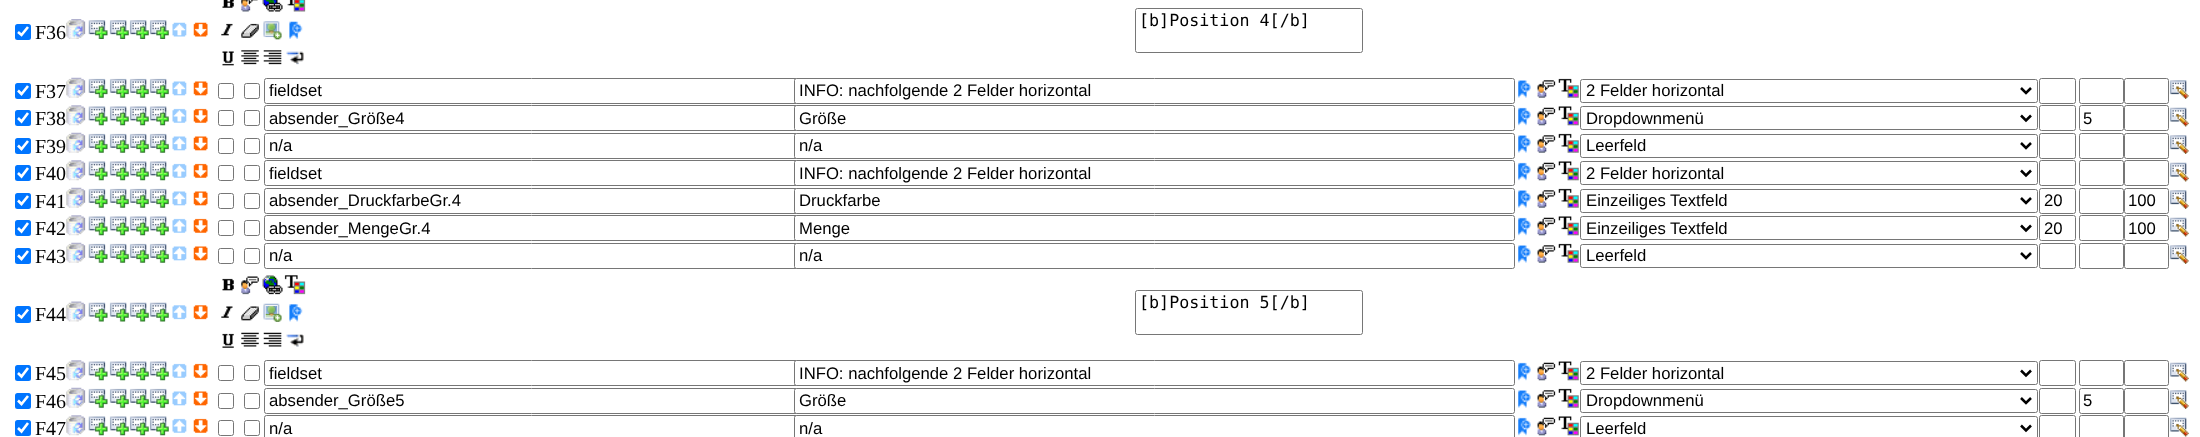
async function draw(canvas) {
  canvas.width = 2200;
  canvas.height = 437;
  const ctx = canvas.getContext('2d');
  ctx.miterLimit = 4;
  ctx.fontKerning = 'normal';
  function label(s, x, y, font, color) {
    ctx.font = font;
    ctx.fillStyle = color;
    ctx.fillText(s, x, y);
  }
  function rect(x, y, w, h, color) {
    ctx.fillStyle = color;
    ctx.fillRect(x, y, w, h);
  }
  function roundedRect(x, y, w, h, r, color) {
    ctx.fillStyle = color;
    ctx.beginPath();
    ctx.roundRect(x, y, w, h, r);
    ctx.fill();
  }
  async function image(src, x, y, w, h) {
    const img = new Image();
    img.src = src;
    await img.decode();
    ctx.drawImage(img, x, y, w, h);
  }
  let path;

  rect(0, 0, 2200, 437, '#fff');
  roundedRect(15, 24, 16, 16, 2.5, '#0075ff');
  path = new Path2D('M18 32L21.5 35L28 27');
  ctx.strokeStyle = '#fff';
  ctx.lineWidth = 2.6;
  ctx.stroke(path);
  label('F36', 35, 39, '20px Liberation Serif', '#000');
  await image('assets/img1.png', 66, 19, 20, 20);
  await image('assets/img2.png', 88, 20, 20, 19);
  await image('assets/img3.png', 109, 20, 20, 19);
  await image('assets/img3.png', 129, 20, 20, 19);
  await image('assets/img3.png', 149, 20, 20, 19);
  await image('assets/img4.png', 172, 22, 15, 15);
  await image('assets/img5.png', 193, 22, 15, 15);
  await image('assets/img6.png', 222, 0, 12, 8);
  await image('assets/img7.png', 241, 0, 17, 12);
  await image('assets/img8.png', 262, 0, 21, 12);
  await image('assets/img9.png', 287, 0, 19, 12);
  await image('assets/img10.png', 221, 23, 12, 13);
  await image('assets/img11.png', 241, 23, 18, 15);
  await image('assets/img12.png', 263, 21, 19, 19);
  await image('assets/img13.png', 289, 21, 14, 18);
  await image('assets/img14.png', 222, 51, 12, 15);
  await image('assets/img15.png', 241, 50, 18, 15);
  await image('assets/img16.png', 263, 50, 19, 15);
  await image('assets/img17.png', 286, 51, 18, 14);
  ctx.beginPath();
  ctx.roundRect(1135.5, 8.5, 227, 44, 2);
  ctx.strokeStyle = '#767676';
  ctx.lineWidth = 1;
  ctx.stroke();
  label('[b]Position 4[/b]', 1139, 26, '16.7px DejaVu Sans Mono', '#000');
  roundedRect(15, 83, 16, 16, 2.5, '#0075ff');
  path = new Path2D('M18 90.5L21.5 94L28 86');
  ctx.strokeStyle = '#fff';
  ctx.lineWidth = 2.6;
  ctx.stroke(path);
  label('F37', 35, 98, '20px Liberation Serif', '#000');
  await image('assets/img18.png', 66, 77, 20, 21);
  await image('assets/img19.png', 88, 78, 20, 20);
  await image('assets/img20.png', 109, 78, 20, 20);
  await image('assets/img20.png', 129, 78, 20, 20);
  await image('assets/img20.png', 149, 78, 20, 20);
  await image('assets/img21.png', 172, 81, 15, 15);
  await image('assets/img22.png', 193, 81, 15, 15);
  ctx.beginPath();
  ctx.roundRect(218.5, 83.5, 15, 15, 2);
  ctx.strokeStyle = '#767676';
  ctx.lineWidth = 1;
  ctx.stroke();
  ctx.beginPath();
  ctx.roundRect(244.5, 83.5, 15, 15, 2);
  ctx.stroke();
  ctx.beginPath();
  ctx.roundRect(264.5, 78.5, 534, 25, 2);
  ctx.stroke();
  label('fieldset', 269, 96, '16.7px Liberation Sans', '#000');
  ctx.fillStyle = '#fff';
  ctx.beginPath();
  ctx.roundRect(794.5, 78.5, 720, 25, 2);
  ctx.fill();
  ctx.stroke();
  label('INFO: nachfolgende 2 Felder horizontal', 799, 96, '16.7px Liberation Sans', '#000');
  await image('assets/img23.png', 1518, 80, 13, 18);
  await image('assets/img24.png', 1537, 80, 19, 18);
  await image('assets/img25.png', 1558, 78, 21, 20);
  ctx.beginPath();
  ctx.roundRect(1580.5, 79.5, 457, 23, 2);
  ctx.stroke();
  path = new Path2D('M2021 88L2026 93L2031 88');
  ctx.strokeStyle = '#000';
  ctx.lineWidth = 2.5;
  ctx.stroke(path);
  label('2 Felder horizontal', 1586, 96, '16.7px Liberation Sans', '#000');
  ctx.beginPath();
  ctx.roundRect(2039.5, 78.5, 36, 25, 2);
  ctx.strokeStyle = '#767676';
  ctx.lineWidth = 1;
  ctx.stroke();
  ctx.beginPath();
  ctx.roundRect(2079.5, 78.5, 44, 25, 2);
  ctx.stroke();
  ctx.beginPath();
  ctx.roundRect(2124.5, 78.5, 44, 25, 2);
  ctx.stroke();
  await image('assets/img26.png', 2169, 80, 20, 19);
  roundedRect(15, 110, 16, 16, 2.5, '#0075ff');
  path = new Path2D('M18 118L21.5 121.5L28 113');
  ctx.strokeStyle = '#fff';
  ctx.lineWidth = 2.6;
  ctx.stroke(path);
  label('F38', 35, 125, '20px Liberation Serif', '#000');
  await image('assets/img27.png', 66, 105, 20, 21);
  await image('assets/img28.png', 88, 106, 20, 20);
  await image('assets/img29.png', 109, 106, 20, 20);
  await image('assets/img29.png', 129, 106, 20, 20);
  await image('assets/img29.png', 149, 106, 20, 20);
  await image('assets/img30.png', 172, 108, 15, 15);
  await image('assets/img31.png', 193, 108, 15, 15);
  ctx.beginPath();
  ctx.roundRect(218.5, 110.5, 15, 15, 2);
  ctx.strokeStyle = '#767676';
  ctx.lineWidth = 1;
  ctx.stroke();
  ctx.beginPath();
  ctx.roundRect(244.5, 110.5, 15, 15, 2);
  ctx.stroke();
  ctx.beginPath();
  ctx.roundRect(264.5, 105.5, 534, 25, 2);
  ctx.stroke();
  label('absender_Größe4', 269, 124, '16.7px Liberation Sans', '#000');
  ctx.fillStyle = '#fff';
  ctx.beginPath();
  ctx.roundRect(794.5, 105.5, 720, 25, 2);
  ctx.fill();
  ctx.stroke();
  label('Größe', 799, 124, '16.7px Liberation Sans', '#000');
  await image('assets/img32.png', 1518, 107, 13, 19);
  await image('assets/img33.png', 1537, 107, 19, 19);
  await image('assets/img34.png', 1558, 106, 21, 20);
  ctx.beginPath();
  ctx.roundRect(1580.5, 106.5, 457, 23, 2);
  ctx.stroke();
  path = new Path2D('M2021 115.5L2026 120.5L2031 115.5');
  ctx.strokeStyle = '#000';
  ctx.lineWidth = 2.5;
  ctx.stroke(path);
  label('Dropdownmenü', 1586, 124, '16.7px Liberation Sans', '#000');
  ctx.beginPath();
  ctx.roundRect(2039.5, 105.5, 36, 25, 2);
  ctx.strokeStyle = '#767676';
  ctx.lineWidth = 1;
  ctx.stroke();
  ctx.beginPath();
  ctx.roundRect(2079.5, 105.5, 44, 25, 2);
  ctx.stroke();
  label('5', 2083, 124, '16.7px Liberation Sans', '#000');
  ctx.beginPath();
  ctx.roundRect(2124.5, 105.5, 44, 25, 2);
  ctx.stroke();
  await image('assets/img35.png', 2169, 107, 20, 20);
  roundedRect(15, 138, 16, 16, 2.5, '#0075ff');
  path = new Path2D('M18 145.5L21.5 149L28 141');
  ctx.strokeStyle = '#fff';
  ctx.lineWidth = 2.6;
  ctx.stroke(path);
  label('F39', 35, 153, '20px Liberation Serif', '#000');
  await image('assets/img18.png', 66, 132, 20, 21);
  await image('assets/img19.png', 88, 133, 20, 20);
  await image('assets/img20.png', 109, 133, 20, 20);
  await image('assets/img20.png', 129, 133, 20, 20);
  await image('assets/img20.png', 149, 133, 20, 20);
  await image('assets/img21.png', 172, 136, 15, 15);
  await image('assets/img22.png', 193, 136, 15, 15);
  ctx.beginPath();
  ctx.roundRect(218.5, 138.5, 15, 15, 2);
  ctx.strokeStyle = '#767676';
  ctx.lineWidth = 1;
  ctx.stroke();
  ctx.beginPath();
  ctx.roundRect(244.5, 138.5, 15, 15, 2);
  ctx.stroke();
  ctx.beginPath();
  ctx.roundRect(264.5, 133.5, 534, 25, 2);
  ctx.stroke();
  label('n/a', 269, 151, '16.7px Liberation Sans', '#000');
  ctx.fillStyle = '#fff';
  ctx.beginPath();
  ctx.roundRect(794.5, 133.5, 720, 25, 2);
  ctx.fill();
  ctx.stroke();
  label('n/a', 799, 151, '16.7px Liberation Sans', '#000');
  await image('assets/img23.png', 1518, 135, 13, 18);
  await image('assets/img24.png', 1537, 135, 19, 18);
  await image('assets/img25.png', 1558, 133, 21, 20);
  ctx.beginPath();
  ctx.roundRect(1580.5, 134.5, 457, 23, 2);
  ctx.stroke();
  path = new Path2D('M2021 143L2026 148L2031 143');
  ctx.strokeStyle = '#000';
  ctx.lineWidth = 2.5;
  ctx.stroke(path);
  label('Leerfeld', 1586, 151, '16.7px Liberation Sans', '#000');
  ctx.beginPath();
  ctx.roundRect(2039.5, 133.5, 36, 25, 2);
  ctx.strokeStyle = '#767676';
  ctx.lineWidth = 1;
  ctx.stroke();
  ctx.beginPath();
  ctx.roundRect(2079.5, 133.5, 44, 25, 2);
  ctx.stroke();
  ctx.beginPath();
  ctx.roundRect(2124.5, 133.5, 44, 25, 2);
  ctx.stroke();
  await image('assets/img26.png', 2169, 135, 20, 19);
  roundedRect(15, 165, 16, 16, 2.5, '#0075ff');
  path = new Path2D('M18 173L21.5 176.5L28 168');
  ctx.strokeStyle = '#fff';
  ctx.lineWidth = 2.6;
  ctx.stroke(path);
  label('F40', 35, 180, '20px Liberation Serif', '#000');
  await image('assets/img36.png', 66, 160, 20, 21);
  await image('assets/img37.png', 88, 161, 20, 20);
  await image('assets/img38.png', 109, 161, 20, 20);
  await image('assets/img38.png', 129, 161, 20, 20);
  await image('assets/img38.png', 149, 161, 20, 20);
  await image('assets/img39.png', 172, 163, 15, 15);
  await image('assets/img40.png', 193, 163, 15, 15);
  ctx.beginPath();
  ctx.roundRect(218.5, 165.5, 15, 15, 2);
  ctx.strokeStyle = '#767676';
  ctx.lineWidth = 1;
  ctx.stroke();
  ctx.beginPath();
  ctx.roundRect(244.5, 165.5, 15, 15, 2);
  ctx.stroke();
  ctx.beginPath();
  ctx.roundRect(264.5, 160.5, 534, 25, 2);
  ctx.stroke();
  label('fieldset', 269, 179, '16.7px Liberation Sans', '#000');
  ctx.fillStyle = '#fff';
  ctx.beginPath();
  ctx.roundRect(794.5, 160.5, 720, 25, 2);
  ctx.fill();
  ctx.stroke();
  label('INFO: nachfolgende 2 Felder horizontal', 799, 179, '16.7px Liberation Sans', '#000');
  await image('assets/img41.png', 1518, 162, 13, 19);
  await image('assets/img42.png', 1537, 162, 19, 19);
  await image('assets/img43.png', 1558, 161, 21, 20);
  ctx.beginPath();
  ctx.roundRect(1580.5, 161.5, 457, 23, 2);
  ctx.stroke();
  path = new Path2D('M2021 170.5L2026 175.5L2031 170.5');
  ctx.strokeStyle = '#000';
  ctx.lineWidth = 2.5;
  ctx.stroke(path);
  label('2 Felder horizontal', 1586, 179, '16.7px Liberation Sans', '#000');
  ctx.beginPath();
  ctx.roundRect(2039.5, 160.5, 36, 25, 2);
  ctx.strokeStyle = '#767676';
  ctx.lineWidth = 1;
  ctx.stroke();
  ctx.beginPath();
  ctx.roundRect(2079.5, 160.5, 44, 25, 2);
  ctx.stroke();
  ctx.beginPath();
  ctx.roundRect(2124.5, 160.5, 44, 25, 2);
  ctx.stroke();
  await image('assets/img44.png', 2169, 162, 20, 20);
  roundedRect(15, 193, 16, 16, 2.5, '#0075ff');
  path = new Path2D('M18 200.5L21.5 204L28 196');
  ctx.strokeStyle = '#fff';
  ctx.lineWidth = 2.6;
  ctx.stroke(path);
  label('F41', 35, 208, '20px Liberation Serif', '#000');
  await image('assets/img18.png', 66, 187, 20, 21);
  await image('assets/img19.png', 88, 188, 20, 20);
  await image('assets/img20.png', 109, 188, 20, 20);
  await image('assets/img20.png', 129, 188, 20, 20);
  await image('assets/img20.png', 149, 188, 20, 20);
  await image('assets/img21.png', 172, 191, 15, 15);
  await image('assets/img22.png', 193, 191, 15, 15);
  ctx.beginPath();
  ctx.roundRect(218.5, 193.5, 15, 15, 2);
  ctx.strokeStyle = '#767676';
  ctx.lineWidth = 1;
  ctx.stroke();
  ctx.beginPath();
  ctx.roundRect(244.5, 193.5, 15, 15, 2);
  ctx.stroke();
  ctx.beginPath();
  ctx.roundRect(264.5, 188.5, 534, 25, 2);
  ctx.stroke();
  label('absender_DruckfarbeGr.4', 269, 206, '16.7px Liberation Sans', '#000');
  ctx.fillStyle = '#fff';
  ctx.beginPath();
  ctx.roundRect(794.5, 188.5, 720, 25, 2);
  ctx.fill();
  ctx.stroke();
  label('Druckfarbe', 799, 206, '16.7px Liberation Sans', '#000');
  await image('assets/img23.png', 1518, 190, 13, 18);
  await image('assets/img24.png', 1537, 190, 19, 18);
  await image('assets/img25.png', 1558, 188, 21, 20);
  ctx.beginPath();
  ctx.roundRect(1580.5, 189.5, 457, 23, 2);
  ctx.stroke();
  path = new Path2D('M2021 198L2026 203L2031 198');
  ctx.strokeStyle = '#000';
  ctx.lineWidth = 2.5;
  ctx.stroke(path);
  label('Einzeiliges Textfeld', 1586, 206, '16.7px Liberation Sans', '#000');
  ctx.beginPath();
  ctx.roundRect(2039.5, 188.5, 36, 25, 2);
  ctx.strokeStyle = '#767676';
  ctx.lineWidth = 1;
  ctx.stroke();
  label('20', 2044, 206, '16.7px Liberation Sans', '#000');
  ctx.beginPath();
  ctx.roundRect(2079.5, 188.5, 44, 25, 2);
  ctx.stroke();
  ctx.beginPath();
  ctx.roundRect(2124.5, 188.5, 44, 25, 2);
  ctx.stroke();
  label('100', 2128, 206, '16.7px Liberation Sans', '#000');
  await image('assets/img26.png', 2169, 190, 20, 19);
  roundedRect(15, 220, 16, 16, 2.5, '#0075ff');
  path = new Path2D('M18 228L21.5 231.5L28 223');
  ctx.strokeStyle = '#fff';
  ctx.lineWidth = 2.6;
  ctx.stroke(path);
  label('F42', 35, 235, '20px Liberation Serif', '#000');
  await image('assets/img27.png', 66, 215, 20, 21);
  await image('assets/img28.png', 88, 216, 20, 20);
  await image('assets/img29.png', 109, 216, 20, 20);
  await image('assets/img29.png', 129, 216, 20, 20);
  await image('assets/img29.png', 149, 216, 20, 20);
  await image('assets/img30.png', 172, 218, 15, 15);
  await image('assets/img31.png', 193, 218, 15, 15);
  ctx.beginPath();
  ctx.roundRect(218.5, 220.5, 15, 15, 2);
  ctx.strokeStyle = '#767676';
  ctx.lineWidth = 1;
  ctx.stroke();
  ctx.beginPath();
  ctx.roundRect(244.5, 220.5, 15, 15, 2);
  ctx.stroke();
  ctx.beginPath();
  ctx.roundRect(264.5, 215.5, 534, 25, 2);
  ctx.stroke();
  label('absender_MengeGr.4', 269, 234, '16.7px Liberation Sans', '#000');
  ctx.fillStyle = '#fff';
  ctx.beginPath();
  ctx.roundRect(794.5, 215.5, 720, 25, 2);
  ctx.fill();
  ctx.stroke();
  label('Menge', 799, 234, '16.7px Liberation Sans', '#000');
  await image('assets/img41.png', 1518, 217, 13, 19);
  await image('assets/img33.png', 1537, 217, 19, 19);
  await image('assets/img34.png', 1558, 216, 21, 20);
  ctx.beginPath();
  ctx.roundRect(1580.5, 216.5, 457, 23, 2);
  ctx.stroke();
  path = new Path2D('M2021 225.5L2026 230.5L2031 225.5');
  ctx.strokeStyle = '#000';
  ctx.lineWidth = 2.5;
  ctx.stroke(path);
  label('Einzeiliges Textfeld', 1586, 234, '16.7px Liberation Sans', '#000');
  ctx.beginPath();
  ctx.roundRect(2039.5, 215.5, 36, 25, 2);
  ctx.strokeStyle = '#767676';
  ctx.lineWidth = 1;
  ctx.stroke();
  label('20', 2044, 234, '16.7px Liberation Sans', '#000');
  ctx.beginPath();
  ctx.roundRect(2079.5, 215.5, 44, 25, 2);
  ctx.stroke();
  ctx.beginPath();
  ctx.roundRect(2124.5, 215.5, 44, 25, 2);
  ctx.stroke();
  label('100', 2128, 234, '16.7px Liberation Sans', '#000');
  await image('assets/img35.png', 2169, 217, 20, 20);
  roundedRect(15, 248, 16, 16, 2.5, '#0075ff');
  path = new Path2D('M18 255.5L21.5 259L28 251');
  ctx.strokeStyle = '#fff';
  ctx.lineWidth = 2.6;
  ctx.stroke(path);
  label('F43', 35, 263, '20px Liberation Serif', '#000');
  await image('assets/img18.png', 66, 242, 20, 21);
  await image('assets/img19.png', 88, 243, 20, 20);
  await image('assets/img20.png', 109, 243, 20, 20);
  await image('assets/img20.png', 129, 243, 20, 20);
  await image('assets/img20.png', 149, 243, 20, 20);
  await image('assets/img21.png', 172, 246, 15, 15);
  await image('assets/img22.png', 193, 246, 15, 15);
  ctx.beginPath();
  ctx.roundRect(218.5, 248.5, 15, 15, 2);
  ctx.strokeStyle = '#767676';
  ctx.lineWidth = 1;
  ctx.stroke();
  ctx.beginPath();
  ctx.roundRect(244.5, 248.5, 15, 15, 2);
  ctx.stroke();
  ctx.beginPath();
  ctx.roundRect(264.5, 243.5, 534, 25, 2);
  ctx.stroke();
  label('n/a', 269, 261, '16.7px Liberation Sans', '#000');
  ctx.fillStyle = '#fff';
  ctx.beginPath();
  ctx.roundRect(794.5, 243.5, 720, 25, 2);
  ctx.fill();
  ctx.stroke();
  label('n/a', 799, 261, '16.7px Liberation Sans', '#000');
  await image('assets/img23.png', 1518, 245, 13, 18);
  await image('assets/img24.png', 1537, 245, 19, 18);
  await image('assets/img25.png', 1558, 243, 21, 20);
  ctx.beginPath();
  ctx.roundRect(1580.5, 244.5, 457, 23, 2);
  ctx.stroke();
  path = new Path2D('M2021 253L2026 258L2031 253');
  ctx.strokeStyle = '#000';
  ctx.lineWidth = 2.5;
  ctx.stroke(path);
  label('Leerfeld', 1586, 261, '16.7px Liberation Sans', '#000');
  ctx.beginPath();
  ctx.roundRect(2039.5, 243.5, 36, 25, 2);
  ctx.strokeStyle = '#767676';
  ctx.lineWidth = 1;
  ctx.stroke();
  ctx.beginPath();
  ctx.roundRect(2079.5, 243.5, 44, 25, 2);
  ctx.stroke();
  ctx.beginPath();
  ctx.roundRect(2124.5, 243.5, 44, 25, 2);
  ctx.stroke();
  await image('assets/img26.png', 2169, 245, 20, 19);
  roundedRect(15, 306, 16, 17, 2.5, '#0075ff');
  path = new Path2D('M18 314.5L21.5 317.5L28 309.5');
  ctx.strokeStyle = '#fff';
  ctx.lineWidth = 2.6;
  ctx.stroke(path);
  label('F44', 35, 321, '20px Liberation Serif', '#000');
  await image('assets/img45.png', 66, 301, 20, 21);
  await image('assets/img46.png', 88, 302, 20, 20);
  await image('assets/img47.png', 109, 302, 20, 20);
  await image('assets/img47.png', 129, 302, 20, 20);
  await image('assets/img47.png', 149, 302, 20, 20);
  await image('assets/img48.png', 172, 305, 15, 15);
  await image('assets/img49.png', 193, 305, 15, 15);
  await image('assets/img50.png', 222, 278, 12, 13);
  await image('assets/img51.png', 241, 276, 18, 19);
  await image('assets/img52.png', 262, 275, 21, 20);
  await image('assets/img53.png', 284, 275, 22, 20);
  await image('assets/img54.png', 221, 306, 12, 12);
  await image('assets/img55.png', 241, 306, 18, 15);
  await image('assets/img56.png', 263, 303, 19, 19);
  await image('assets/img57.png', 289, 304, 14, 18);
  await image('assets/img58.png', 222, 333, 12, 15);
  await image('assets/img59.png', 241, 332, 18, 15);
  await image('assets/img60.png', 263, 332, 19, 15);
  await image('assets/img61.png', 286, 334, 18, 13);
  ctx.beginPath();
  ctx.roundRect(1135.5, 290.5, 227, 44, 2);
  ctx.strokeStyle = '#767676';
  ctx.lineWidth = 1;
  ctx.stroke();
  label('[b]Position 5[/b]', 1139, 308, '16.7px DejaVu Sans Mono', '#000');
  roundedRect(15, 365, 16, 16, 2.5, '#0075ff');
  path = new Path2D('M18 373L21.5 376.5L28 368');
  ctx.strokeStyle = '#fff';
  ctx.lineWidth = 2.6;
  ctx.stroke(path);
  label('F45', 35, 380, '20px Liberation Serif', '#000');
  await image('assets/img62.png', 66, 360, 20, 21);
  await image('assets/img63.png', 88, 361, 20, 20);
  await image('assets/img64.png', 109, 361, 20, 20);
  await image('assets/img64.png', 129, 361, 20, 20);
  await image('assets/img64.png', 149, 361, 20, 20);
  await image('assets/img65.png', 172, 363, 15, 15);
  await image('assets/img40.png', 193, 363, 15, 15);
  ctx.beginPath();
  ctx.roundRect(218.5, 365.5, 15, 15, 2);
  ctx.strokeStyle = '#767676';
  ctx.lineWidth = 1;
  ctx.stroke();
  ctx.beginPath();
  ctx.roundRect(244.5, 365.5, 15, 15, 2);
  ctx.stroke();
  ctx.beginPath();
  ctx.roundRect(264.5, 360.5, 534, 25, 2);
  ctx.stroke();
  label('fieldset', 269, 379, '16.7px Liberation Sans', '#000');
  ctx.fillStyle = '#fff';
  ctx.beginPath();
  ctx.roundRect(794.5, 360.5, 720, 25, 2);
  ctx.fill();
  ctx.stroke();
  label('INFO: nachfolgende 2 Felder horizontal', 799, 379, '16.7px Liberation Sans', '#000');
  await image('assets/img32.png', 1518, 362, 13, 19);
  await image('assets/img66.png', 1537, 362, 19, 19);
  await image('assets/img67.png', 1558, 361, 21, 20);
  ctx.beginPath();
  ctx.roundRect(1580.5, 361.5, 457, 23, 2);
  ctx.stroke();
  path = new Path2D('M2021 370.5L2026 375.5L2031 370.5');
  ctx.strokeStyle = '#000';
  ctx.lineWidth = 2.5;
  ctx.stroke(path);
  label('2 Felder horizontal', 1586, 379, '16.7px Liberation Sans', '#000');
  ctx.beginPath();
  ctx.roundRect(2039.5, 360.5, 36, 25, 2);
  ctx.strokeStyle = '#767676';
  ctx.lineWidth = 1;
  ctx.stroke();
  ctx.beginPath();
  ctx.roundRect(2079.5, 360.5, 44, 25, 2);
  ctx.stroke();
  ctx.beginPath();
  ctx.roundRect(2124.5, 360.5, 44, 25, 2);
  ctx.stroke();
  await image('assets/img35.png', 2169, 362, 20, 20);
  roundedRect(15, 393, 16, 16, 2.5, '#0075ff');
  path = new Path2D('M18 400.5L21.5 404L28 396');
  ctx.strokeStyle = '#fff';
  ctx.lineWidth = 2.6;
  ctx.stroke(path);
  label('F46', 35, 408, '20px Liberation Serif', '#000');
  await image('assets/img18.png', 66, 387, 20, 21);
  await image('assets/img19.png', 88, 388, 20, 20);
  await image('assets/img20.png', 109, 388, 20, 20);
  await image('assets/img20.png', 129, 388, 20, 20);
  await image('assets/img20.png', 149, 388, 20, 20);
  await image('assets/img21.png', 172, 391, 15, 15);
  await image('assets/img22.png', 193, 391, 15, 15);
  ctx.beginPath();
  ctx.roundRect(218.5, 393.5, 15, 15, 2);
  ctx.strokeStyle = '#767676';
  ctx.lineWidth = 1;
  ctx.stroke();
  ctx.beginPath();
  ctx.roundRect(244.5, 393.5, 15, 15, 2);
  ctx.stroke();
  ctx.beginPath();
  ctx.roundRect(264.5, 388.5, 534, 25, 2);
  ctx.stroke();
  label('absender_Größe5', 269, 406, '16.7px Liberation Sans', '#000');
  ctx.fillStyle = '#fff';
  ctx.beginPath();
  ctx.roundRect(794.5, 388.5, 720, 25, 2);
  ctx.fill();
  ctx.stroke();
  label('Größe', 799, 406, '16.7px Liberation Sans', '#000');
  await image('assets/img23.png', 1518, 390, 13, 18);
  await image('assets/img24.png', 1537, 390, 19, 18);
  await image('assets/img25.png', 1558, 388, 21, 20);
  ctx.beginPath();
  ctx.roundRect(1580.5, 389.5, 457, 23, 2);
  ctx.stroke();
  path = new Path2D('M2021 398L2026 403L2031 398');
  ctx.strokeStyle = '#000';
  ctx.lineWidth = 2.5;
  ctx.stroke(path);
  label('Dropdownmenü', 1586, 406, '16.7px Liberation Sans', '#000');
  ctx.beginPath();
  ctx.roundRect(2039.5, 388.5, 36, 25, 2);
  ctx.strokeStyle = '#767676';
  ctx.lineWidth = 1;
  ctx.stroke();
  ctx.beginPath();
  ctx.roundRect(2079.5, 388.5, 44, 25, 2);
  ctx.stroke();
  label('5', 2083, 406, '16.7px Liberation Sans', '#000');
  ctx.beginPath();
  ctx.roundRect(2124.5, 388.5, 44, 25, 2);
  ctx.stroke();
  await image('assets/img26.png', 2169, 390, 20, 19);
  roundedRect(15, 420, 16, 16, 2.5, '#0075ff');
  path = new Path2D('M18 428L21.5 431.5L28 423');
  ctx.strokeStyle = '#fff';
  ctx.lineWidth = 2.6;
  ctx.stroke(path);
  label('F47', 35, 435, '20px Liberation Serif', '#000');
  await image('assets/img27.png', 66, 415, 20, 21);
  await image('assets/img28.png', 88, 416, 20, 20);
  await image('assets/img29.png', 109, 416, 20, 20);
  await image('assets/img29.png', 129, 416, 20, 20);
  await image('assets/img29.png', 149, 416, 20, 20);
  await image('assets/img30.png', 172, 418, 15, 15);
  await image('assets/img31.png', 193, 418, 15, 15);
  ctx.beginPath();
  ctx.roundRect(218.5, 420.5, 15, 15, 2);
  ctx.strokeStyle = '#767676';
  ctx.lineWidth = 1;
  ctx.stroke();
  ctx.beginPath();
  ctx.roundRect(244.5, 420.5, 15, 15, 2);
  ctx.stroke();
  ctx.beginPath();
  ctx.roundRect(264.5, 415.5, 534, 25, 2);
  ctx.stroke();
  label('n/a', 269, 434, '16.7px Liberation Sans', '#000');
  ctx.fillStyle = '#fff';
  ctx.beginPath();
  ctx.roundRect(794.5, 415.5, 720, 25, 2);
  ctx.fill();
  ctx.stroke();
  label('n/a', 799, 434, '16.7px Liberation Sans', '#000');
  await image('assets/img41.png', 1518, 417, 13, 19);
  await image('assets/img33.png', 1537, 417, 19, 19);
  await image('assets/img34.png', 1558, 416, 21, 20);
  ctx.beginPath();
  ctx.roundRect(1580.5, 416.5, 457, 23, 2);
  ctx.stroke();
  path = new Path2D('M2021 425.5L2026 430.5L2031 425.5');
  ctx.strokeStyle = '#000';
  ctx.lineWidth = 2.5;
  ctx.stroke(path);
  label('Leerfeld', 1586, 434, '16.7px Liberation Sans', '#000');
  ctx.beginPath();
  ctx.roundRect(2039.5, 415.5, 36, 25, 2);
  ctx.strokeStyle = '#767676';
  ctx.lineWidth = 1;
  ctx.stroke();
  ctx.beginPath();
  ctx.roundRect(2079.5, 415.5, 44, 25, 2);
  ctx.stroke();
  ctx.beginPath();
  ctx.roundRect(2124.5, 415.5, 44, 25, 2);
  ctx.stroke();
  await image('assets/img35.png', 2169, 417, 20, 20);
}

draw(document.querySelector('canvas'));
